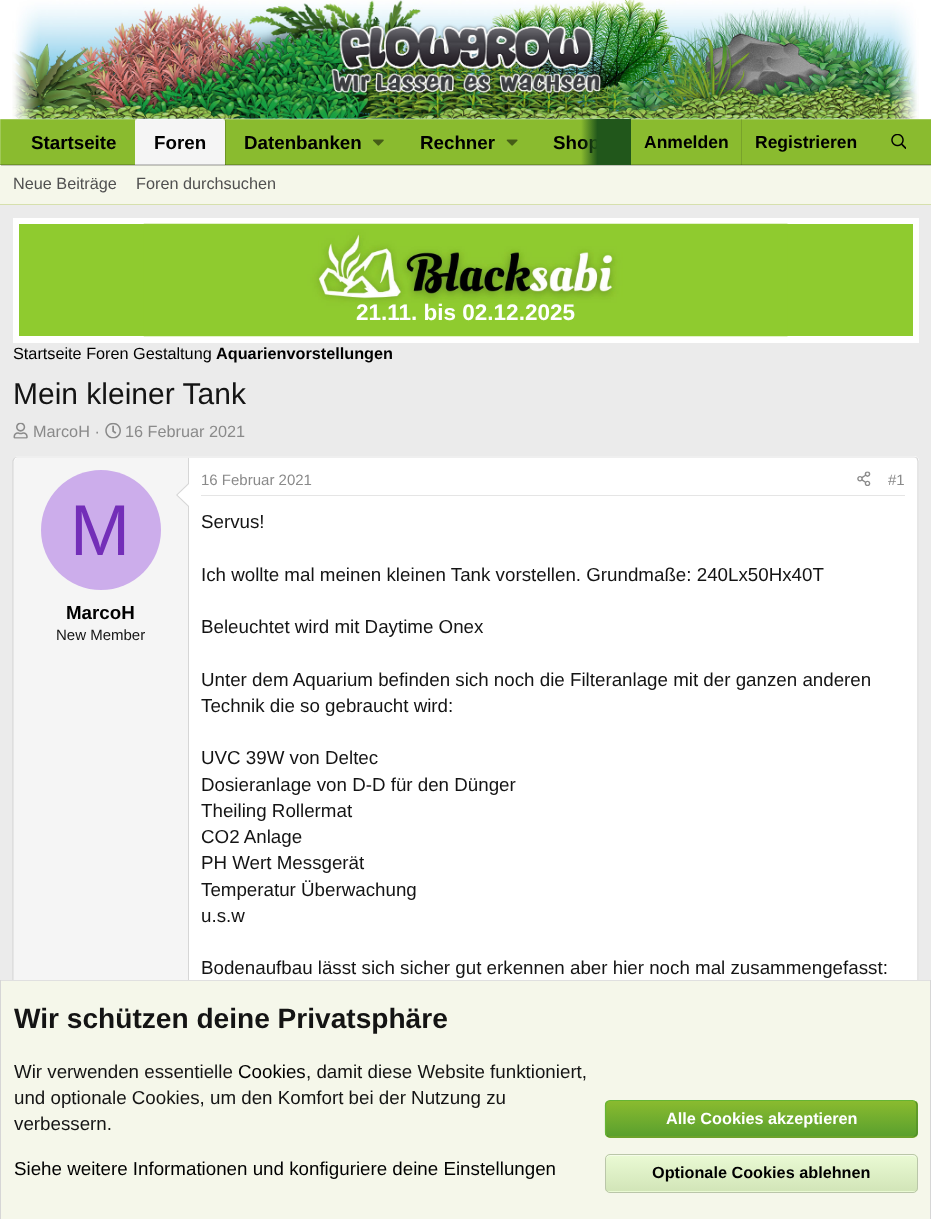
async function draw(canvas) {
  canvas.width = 931;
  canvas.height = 1219;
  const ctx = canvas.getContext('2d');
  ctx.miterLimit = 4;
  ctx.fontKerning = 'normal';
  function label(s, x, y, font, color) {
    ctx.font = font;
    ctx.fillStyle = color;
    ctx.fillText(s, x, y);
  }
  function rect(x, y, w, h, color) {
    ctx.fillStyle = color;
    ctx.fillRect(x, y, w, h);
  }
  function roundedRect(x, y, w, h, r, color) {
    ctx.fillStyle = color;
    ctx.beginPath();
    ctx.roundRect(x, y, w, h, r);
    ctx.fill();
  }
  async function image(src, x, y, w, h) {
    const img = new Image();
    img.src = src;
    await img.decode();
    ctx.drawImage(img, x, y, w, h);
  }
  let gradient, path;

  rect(0, 0, 931, 1219, '#ebebeb');
  rect(0, 0, 931, 119, '#fff');
  await image('assets/img1.png', 12, 0, 907, 119);
  rect(0, 165, 931, 39, '#f5f7ea');
  ctx.fillStyle = '#00000033';
  ctx.filter = 'blur(0.5px)';
  ctx.beginPath();
  ctx.rect(1, 120, 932, 46);
  ctx.fill();
  ctx.filter = 'none';
  rect(1, 120, 930, 44, '#8abb2f');
  rect(741, 119, 1, 46, '#78a22b');
  rect(0, 164, 931, 1, '#6e9626');
  rect(741, 164, 1, 1, '#618323');
  rect(0, 119, 931, 1, '#a1c959');
  rect(741, 119, 1, 1, '#8cae4f');
  rect(0, 119, 1, 46, '#a1c959');
  rect(0, 164, 1, 1, '#81a147');
  rect(0, 119, 1, 1, '#b4d47a');
  label('Startseite', 31, 149, 'bold 18.75px Liberation Sans', '#000');
  ctx.fillStyle = '#f5f5f5';
  ctx.beginPath();
  ctx.roundRect(135, 119, 90, 46, [2.5, 2.5, 0, 0]);
  ctx.fill();
  ctx.save();
  ctx.beginPath();
  ctx.rect(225, 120, 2, 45);
  ctx.clip();
  ctx.fillStyle = '#00000033';
  ctx.filter = 'blur(0.5px)';
  ctx.beginPath();
  ctx.rect(136, 120, 90, 46);
  ctx.fill();
  ctx.filter = 'none';
  ctx.restore();
  rect(135, 119, 1, 3, '#ffffff33');
  rect(135, 119, 90, 1, '#ffffff33');
  rect(135, 164, 90, 1, '#c4c4c4');
  label('Foren', 154, 149, 'bold 18.75px Liberation Sans', '#000');
  label('Datenbanken', 244, 149, 'bold 18.75px Liberation Sans', '#000');
  await image('assets/img2.png', 373, 139, 11, 7);
  label('Rechner', 420, 149, 'bold 18.75px Liberation Sans', '#000');
  await image('assets/img3.png', 506, 139, 12, 7);
  label('Shop', 553, 149, 'bold 18.75px Liberation Sans', '#000');
  gradient = ctx.createLinearGradient(581, 142, 631, 142);
  gradient.addColorStop(0, '#21571b00');
  gradient.addColorStop(0.33, '#21571b');
  ctx.fillStyle = gradient;
  ctx.fillRect(581, 119, 50, 46);
  label('Anmelden', 644, 148, 'bold 17.5px Liberation Sans', '#000');
  label('Registrieren', 755, 148, 'bold 17.5px Liberation Sans', '#000');
  await image('assets/img4.png', 891, 134, 15, 15);
  rect(0, 204, 931, 1, '#d6e0ad');
  label('Neue Beiträge', 13, 189, '16.25px Liberation Sans', '#505050');
  label('Foren durchsuchen', 136, 189, '16.25px Liberation Sans', '#505050');
  rect(13, 218, 906, 125, '#fff');
  rect(19, 224, 894, 112, '#8fcb2f');
  await image('assets/img5.png', 143, 223, 645, 114);
  label('21.11. bis 02.12.2025', 356, 320, 'bold 22.5px Liberation Sans', '#fff');
  label('Startseite Foren Gestaltung', 13, 359, '16.25px Liberation Sans', '#000');
  label('Aquarienvorstellungen', 216, 359, 'bold 16.25px Liberation Sans', '#000');
  label('Mein kleiner Tank', 13, 404, '30px Liberation Sans', '#141414');
  await image('assets/img6.png', 13, 422, 15, 17);
  label('MarcoH ·', 33, 437, '16.25px Liberation Sans', '#8a8a8a');
  await image('assets/img7.png', 105, 422, 16, 17);
  label('16 Februar 2021', 125, 437, '16.25px Liberation Sans', '#8a8a8a');
  roundedRect(13, 456, 906, 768, 5, '#fff');
  path = new Path2D('M14.5 458C15 457.5 16.5 457 17.5 457H914C915 457 916 457.5 917 458');
  ctx.strokeStyle = '#e0e0e0';
  ctx.lineWidth = 1.2;
  ctx.stroke(path);
  path = new Path2D('M917 458L918 461V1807.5L917 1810.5');
  ctx.strokeStyle = '#d6d6d6';
  ctx.stroke(path);
  path = new Path2D('M14.5 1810.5L13 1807.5V461L14.5 458');
  ctx.stroke(path);
  ctx.fillStyle = '#f5f5f5';
  path = new Path2D('M18 458H189V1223H18C16 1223 14 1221 14 1219V462C14 460 16 458 18 458Z');
  ctx.fill(path);
  rect(188, 458, 1, 522, '#d6d6d6');
  path = new Path2D('M189 482.5V507.5L176 495Z');
  ctx.fill(path);
  ctx.fillStyle = '#fff';
  path = new Path2D('M189 484V506L177.5 495Z');
  ctx.fill(path);
  ctx.fillStyle = '#ccadeb';
  ctx.beginPath();
  ctx.arc(101, 530, 60, 0, 2 * Math.PI);
  ctx.fill();
  label('M', 70, 555, '72px Liberation Sans', '#732eb8');
  label('MarcoH', 66, 619, 'bold 18.75px Liberation Sans', '#000');
  label('New Member', 56, 640, '15px Liberation Sans', '#141414');
  rect(201, 495, 704, 1, '#e5e5e5');
  label('16 Februar 2021', 201, 485, '15px Liberation Sans', '#8a8a8a');
  await image('assets/img8.png', 857, 471, 14, 15);
  label('#1', 888, 485, '15px Liberation Sans', '#8a8a8a');
  label('Servus!', 201, 528, '18.75px Liberation Sans', '#141414');
  label('Ich wollte mal meinen kleinen Tank vorstellen. Grundmaße: 240Lx50Hx40T', 201, 581, '18.75px Liberation Sans', '#141414');
  label('Beleuchtet wird mit Daytime Onex', 201, 633, '18.75px Liberation Sans', '#141414');
  label('Unter dem Aquarium befinden sich noch die Filteranlage mit der ganzen anderen', 201, 686, '18.75px Liberation Sans', '#141414');
  label('Technik die so gebraucht wird:', 201, 712, '18.75px Liberation Sans', '#141414');
  label('UVC 39W von Deltec', 201, 764, '18.75px Liberation Sans', '#141414');
  label('Dosieranlage von D-D für den Dünger', 201, 791, '18.75px Liberation Sans', '#141414');
  label('Theiling Rollermat', 201, 817, '18.75px Liberation Sans', '#141414');
  label('CO2 Anlage', 201, 843, '18.75px Liberation Sans', '#141414');
  label('PH Wert Messgerät', 201, 869, '18.75px Liberation Sans', '#141414');
  label('Temperatur Überwachung', 201, 896, '18.75px Liberation Sans', '#141414');
  label('u.s.w', 201, 922, '18.75px Liberation Sans', '#141414');
  label('Bodenaufbau lässt sich sicher gut erkennen aber hier noch mal zusammengefasst:', 201, 974, '18.75px Liberation Sans', '#141414');
  rect(1, 981, 929, 238, '#f5f7ea');
  rect(0, 980, 931, 1, '#e0e0e0');
  rect(930, 980, 1, 239, '#d6d6d6');
  rect(0, 980, 1, 239, '#d6d6d6');
  label('Wir schützen deine Privatsphäre', 14, 1028, 'bold 28.1px Liberation Sans', '#141414');
  label('Wir verwenden essentielle', 14, 1078, '18.75px Liberation Sans', '#141414');
  label('Cookies', 238, 1078, '18.75px Liberation Sans', '#000');
  label(', damit diese Website funktioniert,', 306, 1078, '18.75px Liberation Sans', '#141414');
  label('und optionale Cookies, um den Komfort bei der Nutzung zu', 14, 1104, '18.75px Liberation Sans', '#141414');
  label('verbessern.', 14, 1130, '18.75px Liberation Sans', '#141414');
  label('Siehe weitere Informationen und konfiguriere deine Einstellungen', 14, 1175, '18.75px Liberation Sans', '#000');
  ctx.save();
  ctx.beginPath();
  ctx.roundRect(605, 1100, 313, 38, 5);
  ctx.clip();
  gradient = ctx.createLinearGradient(761, 1101, 761, 1136);
  gradient.addColorStop(0, '#8abb2f');
  gradient.addColorStop(1, '#5aa02e');
  ctx.fillStyle = gradient;
  ctx.fillRect(605, 1101, 313, 35);
  gradient = ctx.createLinearGradient(761, 1136, 761, 1171);
  gradient.addColorStop(0, '#8abb2f');
  gradient.addColorStop(1, '#5aa02e');
  ctx.fillStyle = gradient;
  ctx.fillRect(605, 1136, 313, 2);
  ctx.restore();
  path = new Path2D('M915.5 1102C916.5 1102.5 917 1104 917 1105V1132.5C917 1133.5 916.5 1135 915.5 1135.5C915 1136.5 913.5 1137 912.5 1137H610C609 1137 607.5 1136.5 607 1135.5');
  ctx.strokeStyle = '#4f8c28';
  ctx.stroke(path);
  path = new Path2D('M607 1135.5C606 1135 605.5 1133.5 605.5 1132.5V1105C605.5 1104 606 1102.5 607 1102C607.5 1101 609 1100.5 610 1100.5H912.5C913.5 1100.5 915 1101 915.5 1102');
  ctx.strokeStyle = '#65b434';
  ctx.stroke(path);
  label('Alle Cookies akzeptieren', 666, 1124, 'bold 16.25px Liberation Sans', '#fff');
  roundedRect(605, 1154, 313, 39, 5, '#eafad4');
  ctx.save();
  ctx.beginPath();
  ctx.roundRect(605, 1154, 313, 39, 5);
  ctx.clip();
  gradient = ctx.createLinearGradient(761, 1155, 761, 1191);
  gradient.addColorStop(0, '#eafad4');
  gradient.addColorStop(1, '#d2e5b8');
  ctx.fillStyle = gradient;
  ctx.fillRect(605, 1155, 313, 36);
  ctx.restore();
  ctx.fillStyle = '#f4fce9';
  path = new Path2D('M610 1156H912C915 1156 916 1158 916 1160C916 1157 915 1155 912 1155H610L607 1156C606 1157 606 1159 606 1160C606 1158 608 1156 610 1156Z');
  ctx.fill(path);
  ctx.beginPath();
  ctx.roundRect(605.5, 1154.5, 312, 38, 4.5);
  ctx.strokeStyle = '#bac6a9';
  ctx.lineWidth = 1;
  ctx.stroke();
  label('Optionale Cookies ablehnen', 652, 1178, 'bold 16.25px Liberation Sans', '#000');
}

draw(document.querySelector('canvas'));
